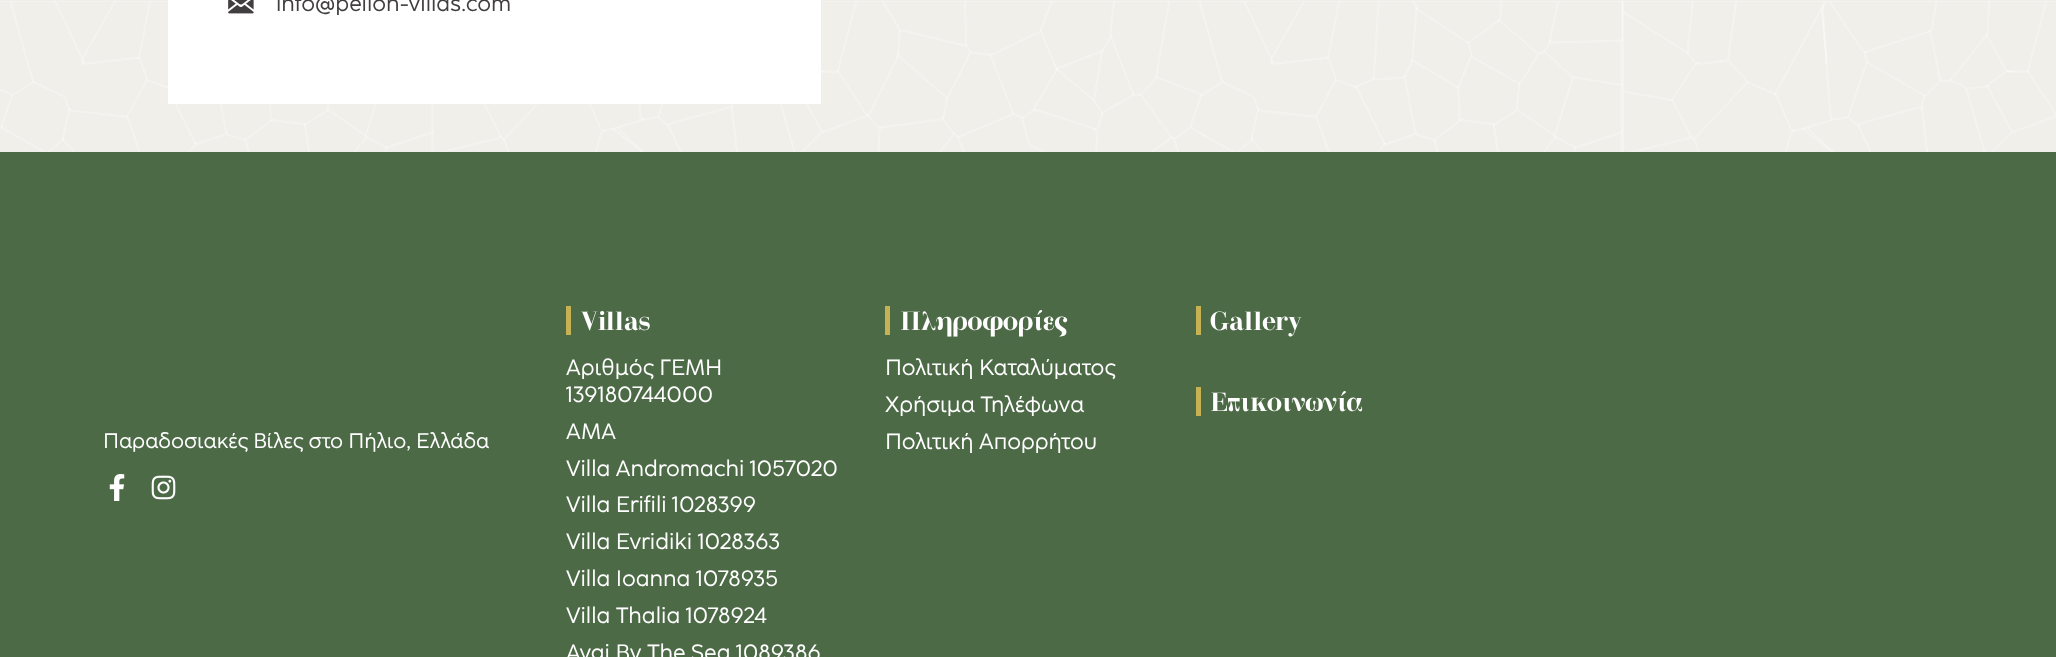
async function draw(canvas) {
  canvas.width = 2056;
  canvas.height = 657;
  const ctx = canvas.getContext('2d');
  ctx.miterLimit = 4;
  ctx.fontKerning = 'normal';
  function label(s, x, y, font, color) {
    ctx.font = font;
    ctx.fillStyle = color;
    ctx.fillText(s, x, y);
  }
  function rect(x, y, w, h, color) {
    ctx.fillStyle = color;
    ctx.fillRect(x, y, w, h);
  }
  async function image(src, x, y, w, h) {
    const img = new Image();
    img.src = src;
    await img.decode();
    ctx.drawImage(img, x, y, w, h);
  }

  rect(0, 0, 2056, 657, '#f0efea');
  await image('assets/img1.png', 0, 1, 2056, 151);
  rect(168, 0, 653, 104, '#fff');
  await image('assets/img2.png', 228, 0, 26, 14);
  label('info@pelion-villas.com', 276, 11, '22.2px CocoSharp', '#413e3f');
  rect(0, 152, 2056, 505, '#4d6a47');
  rect(566, 306, 5, 29, '#c6b253');
  label('Villas', 581, 330, 'bold 26.25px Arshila', '#fff');
  label('Αριθμός ΓΕΜΗ', 566, 375, '22.2px CocoSharp', '#fff');
  label('139180744000', 566, 402, '22.2px CocoSharp', '#fff');
  label('ΑΜΑ', 566, 439, '22.2px CocoSharp', '#fff');
  label('Villa Andromachi 1057020', 566, 476, '22.2px CocoSharp', '#fff');
  label('Villa Erifili 1028399', 566, 512, '22.2px CocoSharp', '#fff');
  label('Villa Evridiki 1028363', 566, 549, '22.2px CocoSharp', '#fff');
  label('Villa Ioanna 1078935', 566, 586, '22.2px CocoSharp', '#fff');
  label('Villa Thalia 1078924', 566, 623, '22.2px CocoSharp', '#fff');
  label('Avgi By The Sea 1089386', 566, 660, '22.2px CocoSharp', '#fff');
  rect(885, 306, 5, 29, '#c6b253');
  label('Πληροφορίες', 900, 330, 'bold 26.25px Arshila', '#fff');
  label('Πολιτική Καταλύματος', 885, 375, '22.2px CocoSharp', '#fff');
  label('Χρήσιμα Τηλέφωνα', 885, 412, '22.2px CocoSharp', '#fff');
  label('Πολιτική Απορρήτου', 885, 449, '22.2px CocoSharp', '#fff');
  rect(1196, 306, 5, 29, '#c6b253');
  label('Gallery', 1210, 330, 'bold 26.25px Arshila', '#fff');
  rect(1196, 387, 5, 29, '#c6b253');
  label('Επικοινωνία', 1210, 411, 'bold 26.25px Arshila', '#fff');
  label('Παραδοσιακές Βίλες στο Πήλιο, Ελλάδα', 103, 448, '21px CocoSharp', '#fff');
  await image('assets/img3.png', 109, 474, 16, 27);
  await image('assets/img4.png', 151, 475, 25, 25);
}

draw(document.querySelector('canvas'));
